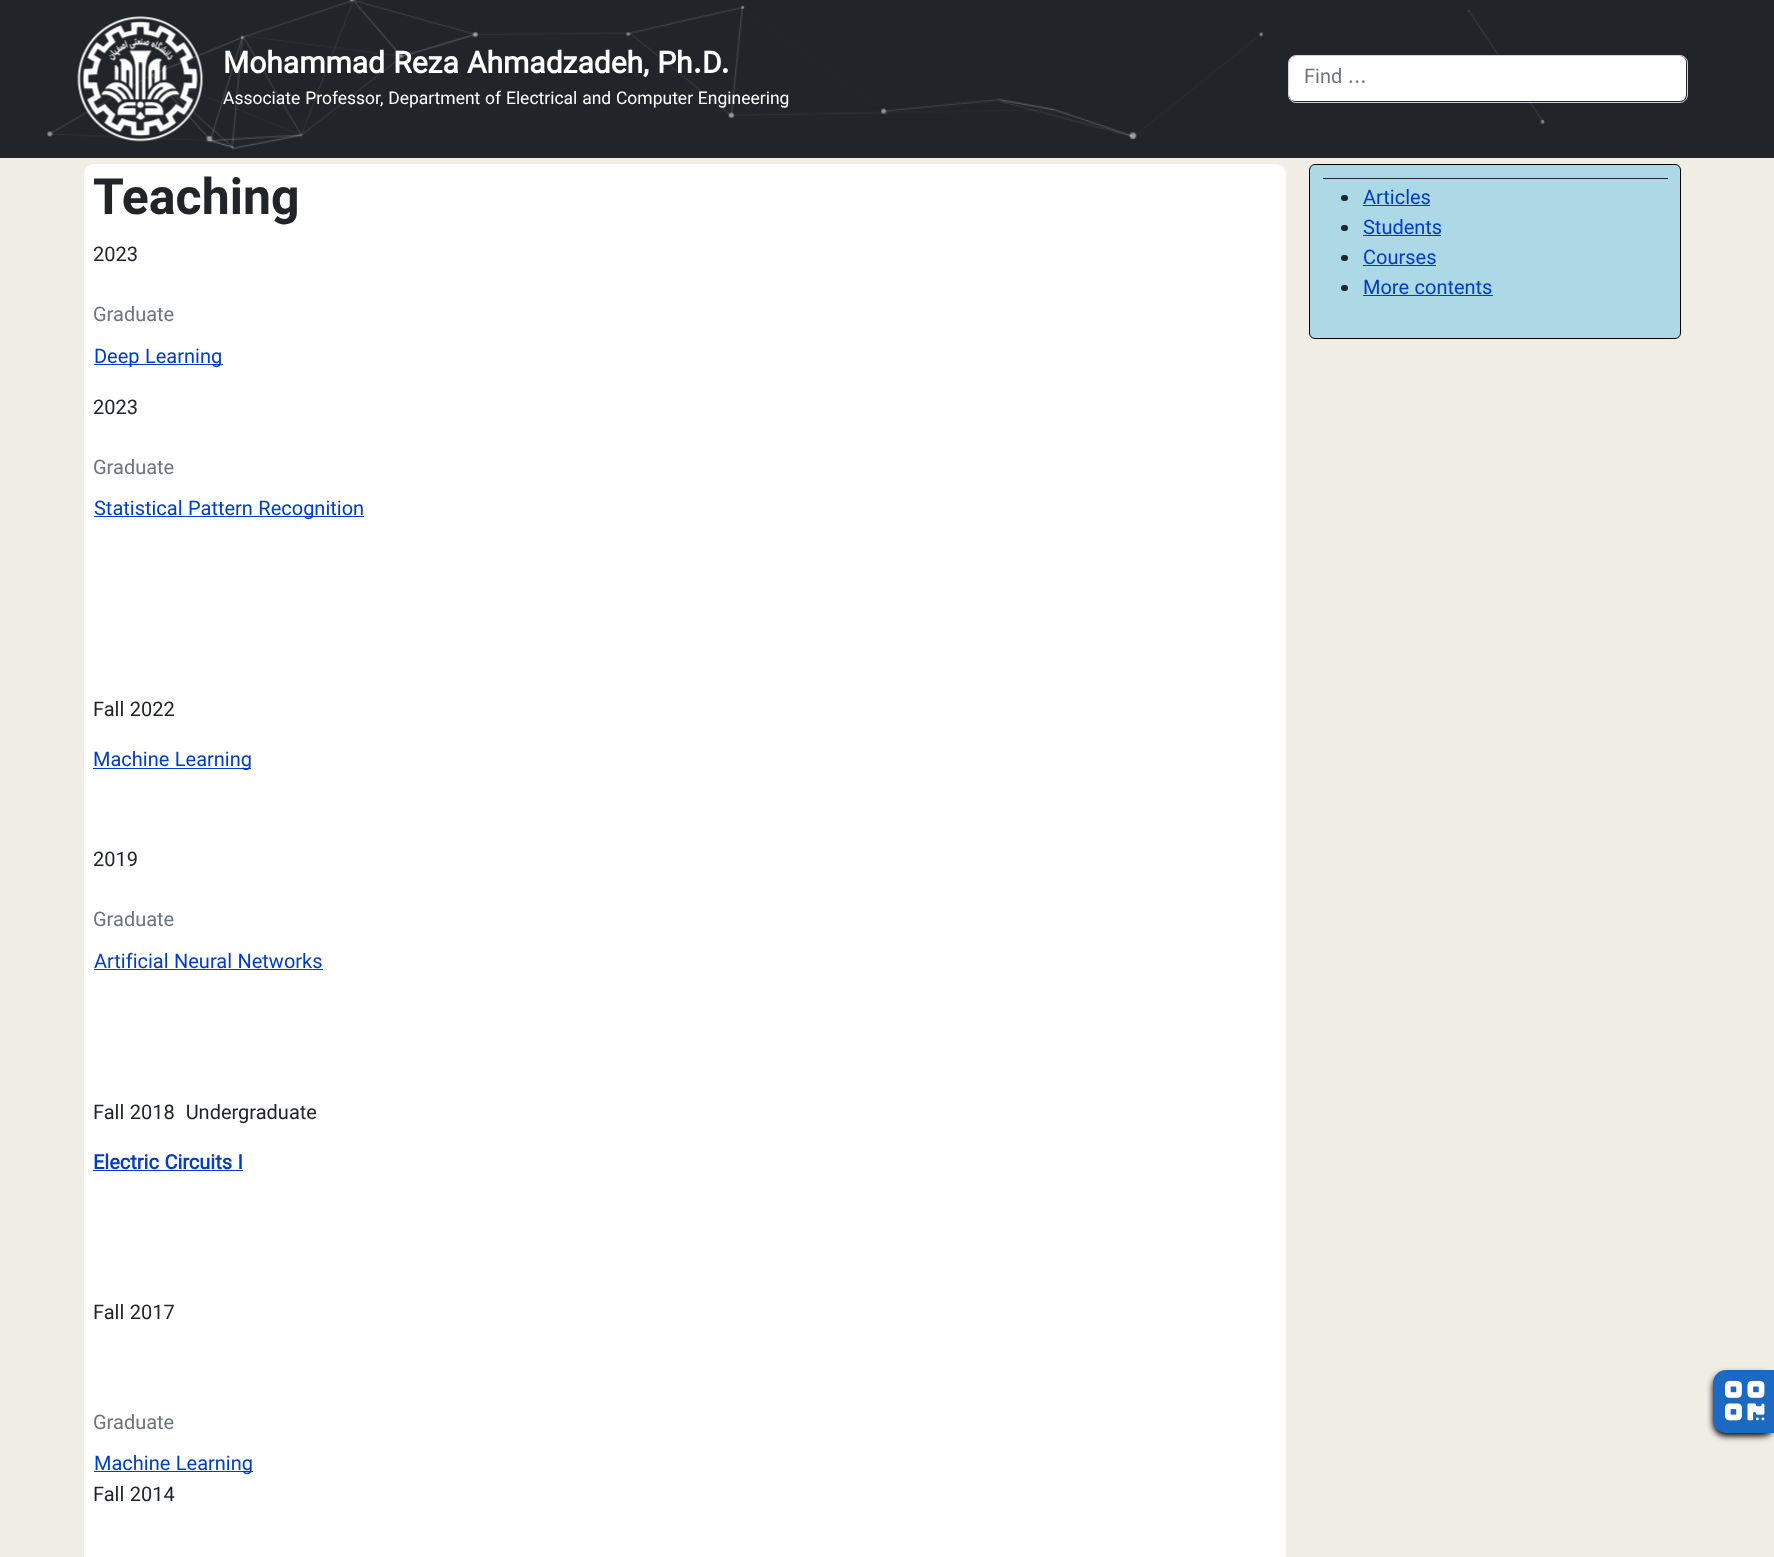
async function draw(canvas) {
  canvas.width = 1774;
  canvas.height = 1557;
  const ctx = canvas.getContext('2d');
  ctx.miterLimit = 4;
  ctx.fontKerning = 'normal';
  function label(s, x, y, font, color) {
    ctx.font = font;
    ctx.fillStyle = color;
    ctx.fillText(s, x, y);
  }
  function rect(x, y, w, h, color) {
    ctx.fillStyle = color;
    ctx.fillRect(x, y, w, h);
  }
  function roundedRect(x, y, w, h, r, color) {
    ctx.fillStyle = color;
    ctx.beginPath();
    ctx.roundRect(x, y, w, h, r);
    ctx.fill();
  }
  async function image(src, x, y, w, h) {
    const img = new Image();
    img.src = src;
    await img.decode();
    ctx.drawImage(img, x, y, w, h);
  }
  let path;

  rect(0, 0, 1774, 1557, '#f0ede5');
  rect(0, 0, 1774, 158, '#212529');
  await image('assets/img1.png', 47, 0, 1498, 150);
  await image('assets/img2.png', 77, 16, 126, 126);
  label('Mohammad Reza Ahmadzadeh, Ph.D.', 223, 73, 'bold 30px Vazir', '#fff');
  label('Associate Professor, Department of Electrical and Computer Engineering', 223, 104, '17.5px Vazir', '#fff');
  roundedRect(1289, 56, 397, 45, 6, '#fff');
  ctx.beginPath();
  ctx.roundRect(1288.5, 55.5, 399, 47, 7.5);
  ctx.strokeStyle = '#ced4da';
  ctx.stroke();
  label('Find ...', 1304, 83, '20px Vazir', '#6c757d');
  roundedRect(84, 164, 1202, 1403, 10, '#fff');
  label('Teaching', 93, 214, 'bold 50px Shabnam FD', '#212529');
  label('2023', 93, 261, '20px Vazir', '#212529');
  label('Graduate', 93, 321, '20px Vazir', '#6c757d');
  rect(94, 364, 129, 1, '#003cc5');
  label('Deep Learning', 94, 363, '20px Vazir', '#003cc5');
  label('2023', 93, 414, '20px Vazir', '#212529');
  label('Graduate', 93, 474, '20px Vazir', '#6c757d');
  rect(94, 516, 270, 1, '#003cc5');
  label('Statistical Pattern Recognition', 94, 515, '20px Vazir', '#003cc5');
  label('Fall 2022', 93, 716, '20px Vazir', '#212529');
  rect(93, 768, 158, 1, '#003cc5');
  label('Machine Learning', 93, 766, '20px Vazir', '#003cc5');
  label('2019', 93, 866, '20px Vazir', '#212529');
  label('Graduate', 93, 926, '20px Vazir', '#6c757d');
  label('Artificial Neural Networks', 94, 968, '20px Vazir', '#003cc5');
  rect(94, 969, 229, 1, '#003cc5');
  label('Fall 2018  Undergraduate', 93, 1119, '20px Vazir', '#212529');
  label('Electric Circuits I', 93, 1169, 'bold 20px Vazir', '#003cc5');
  rect(93, 1170, 150, 1, '#003cc5');
  label('Fall 2017', 93, 1319, '20px Vazir', '#212529');
  label('Graduate', 93, 1429, '20px Vazir', '#6c757d');
  rect(94, 1471, 159, 1, '#003cc5');
  label('Machine Learning', 94, 1470, '20px Vazir', '#003cc5');
  label('Fall 2014', 93, 1501, '20px Vazir', '#212529');
  ctx.fillStyle = '#000';
  ctx.filter = 'blur(3px)';
  ctx.beginPath();
  ctx.roundRect(1713, 1374, 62, 62, 13);
  ctx.fill();
  ctx.filter = 'none';
  ctx.fillStyle = '#1b69c0';
  path = new Path2D('M1726 1370H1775V1433H1726C1719 1433 1713 1427 1713 1420V1383C1713 1376 1719 1370 1726 1370Z');
  ctx.fill(path);
  await image('assets/img3.png', 1725, 1380, 40, 41);
  ctx.fillStyle = '#add8e6';
  ctx.beginPath();
  ctx.roundRect(1309.5, 164.5, 371, 174, 5.5);
  ctx.fill();
  ctx.strokeStyle = '#000';
  ctx.stroke();
  rect(1323, 178, 345, 1, '#212529');
  roundedRect(1341, 195, 7, 6, 3, '#212529');
  label('Articles', 1363, 204, '20px Vazir', '#003cc5');
  rect(1363, 205, 67, 1, '#003cc5');
  roundedRect(1341, 225, 7, 6, 3, '#212529');
  label('Students', 1363, 234, '20px Vazir', '#003cc5');
  rect(1363, 235, 78, 1, '#003cc5');
  roundedRect(1341, 255, 7, 6, 3, '#212529');
  label('Courses', 1363, 264, '20px Vazir', '#003cc5');
  rect(1363, 265, 73, 1, '#003cc5');
  roundedRect(1341, 285, 7, 6, 3, '#212529');
  label('More contents', 1363, 294, '20px Vazir', '#003cc5');
  rect(1363, 295, 130, 1, '#003cc5');
}

draw(document.querySelector('canvas'));
